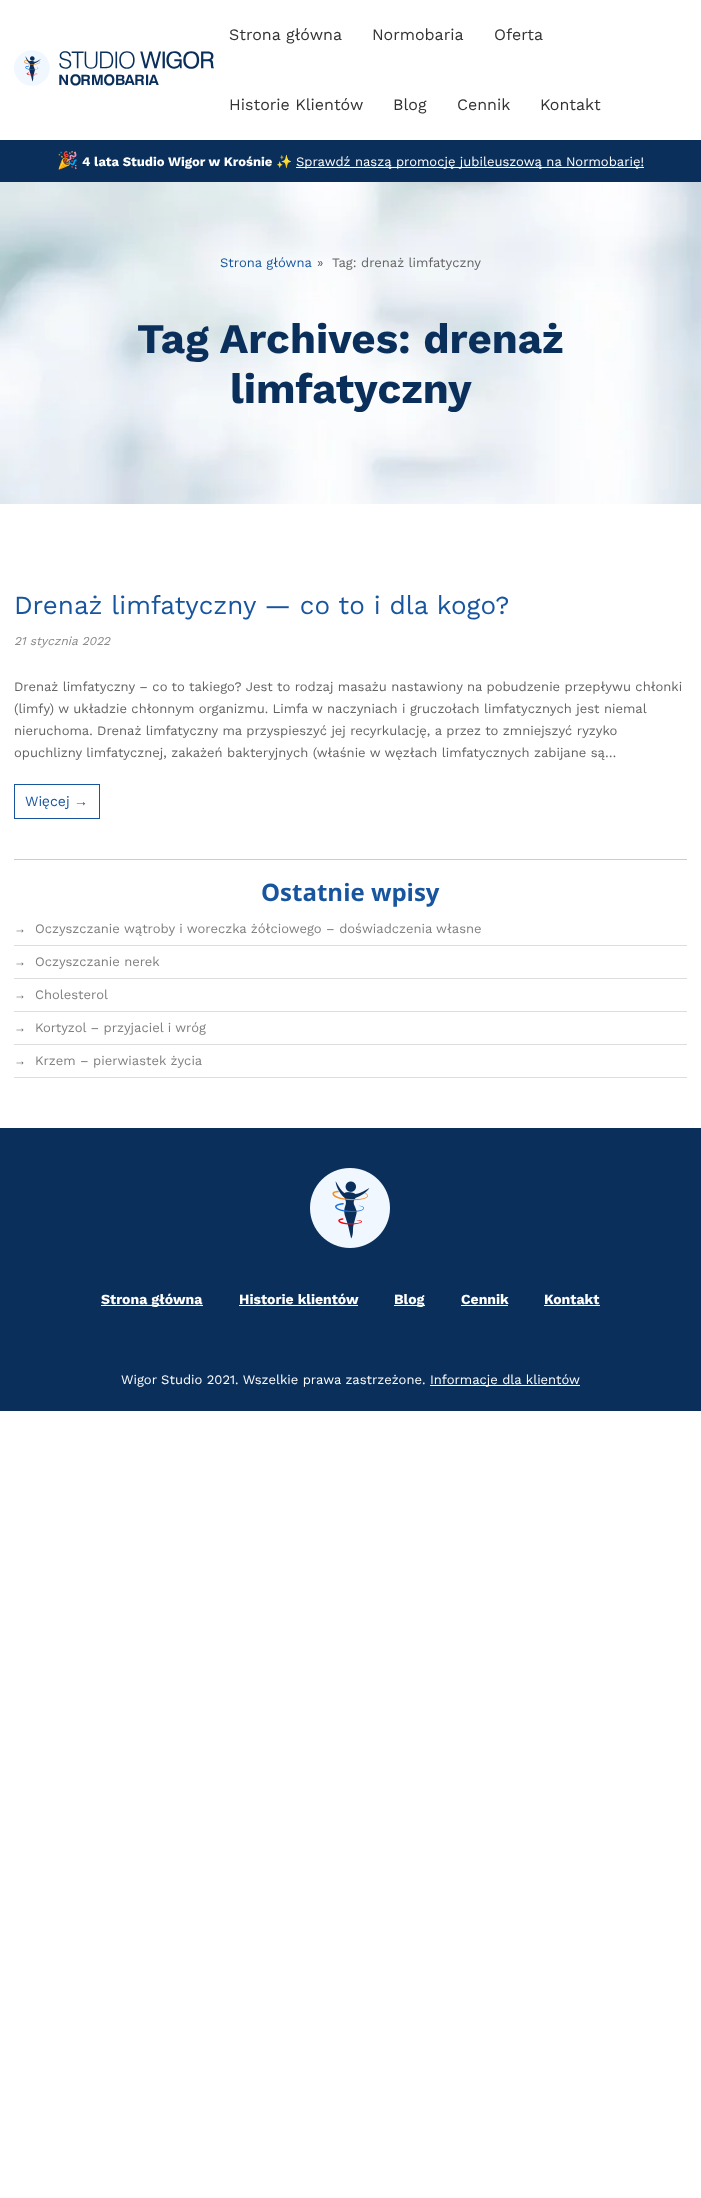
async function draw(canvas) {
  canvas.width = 701;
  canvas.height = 2198;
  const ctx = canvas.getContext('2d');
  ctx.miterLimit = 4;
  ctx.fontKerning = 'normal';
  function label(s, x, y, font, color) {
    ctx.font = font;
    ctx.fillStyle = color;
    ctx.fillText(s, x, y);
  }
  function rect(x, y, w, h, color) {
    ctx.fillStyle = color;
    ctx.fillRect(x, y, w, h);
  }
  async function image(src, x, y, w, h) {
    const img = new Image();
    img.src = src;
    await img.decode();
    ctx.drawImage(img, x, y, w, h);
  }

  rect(0, 0, 701, 2198, '#fff');
  await image('assets/img1.png', 14, 50, 200, 36);
  label('Strona główna', 229, 40, '16px Work Sans', '#333');
  label('Normobaria', 372, 40, '16px Work Sans', '#333');
  label('Oferta', 494, 40, '16px Work Sans', '#333');
  label('Historie Klientów', 229, 110, '16px Work Sans', '#333');
  label('Blog', 393, 110, '16px Work Sans', '#333');
  label('Cennik', 457, 110, '16px Work Sans', '#333');
  label('Kontakt', 540, 110, '16px Work Sans', '#333');
  rect(0, 140, 701, 42, '#0a2f5b');
  label('🎉', 57, 166, 'bold 17px Noto Color Emoji', '#fff');
  label('4 lata Studio Wigor w Krośnie', 82, 166, 'bold 13px Work Sans', '#fff');
  label('✨', 276, 166, '13px Noto Color Emoji', '#fff');
  rect(296, 167, 348, 1, '#fff');
  label('Sprawdź naszą promocję jubileuszową na Normobarię!', 296, 166, '13px Work Sans', '#fff');
  await image('assets/img2.png', 0, 182, 701, 322);
  label('Strona główna', 220, 267, '13px Work Sans', '#18559f');
  label('»  Tag: drenaż limfatyczny', 317, 267, '13px Work Sans', '#636363');
  label('Tag Archives: drenaż', 137, 353, 'bold 42px Work Sans', '#0a2f5b');
  label('limfatyczny', 230, 403, 'bold 42px Work Sans', '#0a2f5b');
  rect(14, 859, 673, 1, '#ccc');
  label('Drenaż limfatyczny — co to i dla kogo?', 14, 614, '26px Work Sans', '#18559f');
  label('21 stycznia 2022', 14, 645, 'italic 12px Work Sans', '#888');
  label('Drenaż limfatyczny – co to takiego? Jest to rodzaj masażu nastawiony na pobudzenie przepływu chłonki', 14, 691, '13px Work Sans', '#636363');
  label('(limfy) w układzie chłonnym organizmu. Limfa w naczyniach i gruczołach limfatycznych jest niemal', 14, 713, '13px Work Sans', '#636363');
  label('nieruchoma. Drenaż limfatyczny ma przyspieszyć jej recyrkulację, a przez to zmniejszyć ryzyko', 14, 735, '13px Work Sans', '#636363');
  label('opuchlizny limfatycznej, zakażeń bakteryjnych (właśnie w węzłach limfatycznych zabijane są…', 14, 757, '13px Work Sans', '#636363');
  ctx.strokeStyle = '#18559f';
  ctx.strokeRect(14.5, 784.5, 85, 34);
  label('Wi', 25, 806, '14px Work Sans', '#18559f');
  label('ę', 42, 806, '14px Liberation Sans', '#18559f');
  label('cej', 50, 806, '14px Work Sans', '#18559f');
  label('→', 74, 806, '14px Liberation Sans', '#18559f');
  label('Ostatnie wpisy', 261, 901, 'bold 24px Open Sans', '#18559f');
  rect(14, 945, 673, 1, '#ddd');
  label('→', 14, 933, '12px Liberation Sans', '#636363');
  label('Oczyszczanie wątroby i woreczka żółciowego – doświadczenia własne', 35, 933, '13px Work Sans', '#7f7f7f');
  rect(14, 978, 673, 1, '#ddd');
  label('→', 14, 966, '12px Liberation Sans', '#636363');
  label('Oczyszczanie nerek', 35, 966, '13px Work Sans', '#7f7f7f');
  rect(14, 1011, 673, 1, '#ddd');
  label('→', 14, 999, '12px Liberation Sans', '#636363');
  label('Cholesterol', 35, 999, '13px Work Sans', '#7f7f7f');
  rect(14, 1044, 673, 1, '#ddd');
  label('→', 14, 1032, '12px Liberation Sans', '#636363');
  label('Kortyzol – przyjaciel i wróg', 35, 1032, '13px Work Sans', '#7f7f7f');
  rect(14, 1077, 673, 1, '#ddd');
  label('→', 14, 1065, '12px Liberation Sans', '#636363');
  label('Krzem – pierwiastek życia', 35, 1065, '13px Work Sans', '#7f7f7f');
  rect(0, 1128, 701, 283, '#0a2f5b');
  await image('assets/img3.png', 310, 1168, 80, 80);
  rect(101, 1305, 102, 1, '#fff');
  label('Strona główna', 101, 1304, 'bold 14px Work Sans', '#fff');
  label('Historie klientów', 239, 1304, 'bold 14px Work Sans', '#fff');
  rect(239, 1305, 119, 1, '#fff');
  rect(394, 1305, 31, 1, '#fff');
  label('Blog', 394, 1304, 'bold 14px Work Sans', '#fff');
  label('Cennik', 461, 1304, 'bold 14px Work Sans', '#fff');
  rect(461, 1305, 47, 1, '#fff');
  label('Kontakt', 544, 1304, 'bold 14px Work Sans', '#fff');
  rect(544, 1305, 56, 1, '#fff');
  label('Wigor Studio 2021. Wszelkie prawa zastrzeżone.', 121, 1384, '13px Work Sans', '#fff');
  rect(430, 1385, 150, 1, '#fff');
  label('Informacje dla klientów', 430, 1384, '13px Work Sans', '#fff');
}

draw(document.querySelector('canvas'));
